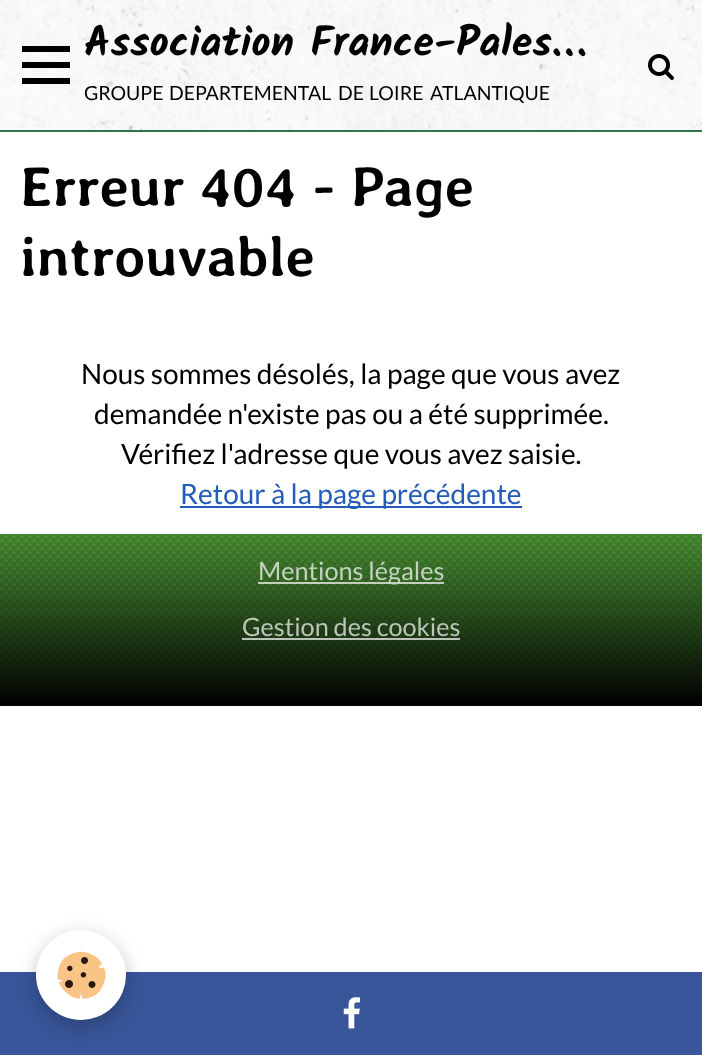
async function draw(canvas) {
  canvas.width = 702;
  canvas.height = 1055;
  const ctx = canvas.getContext('2d');
  ctx.miterLimit = 4;
  ctx.fontKerning = 'normal';
  function label(s, x, y, font, color) {
    ctx.font = font;
    ctx.fillStyle = color;
    ctx.fillText(s, x, y);
  }
  function rect(x, y, w, h, color) {
    ctx.fillStyle = color;
    ctx.fillRect(x, y, w, h);
  }
  async function image(src, x, y, w, h) {
    const img = new Image();
    img.src = src;
    await img.decode();
    ctx.drawImage(img, x, y, w, h);
  }
  let gradient;

  rect(0, 0, 702, 1055, '#fff');
  await image('assets/img1.png', 0, 0, 702, 130);
  rect(0, 130, 702, 2, '#2c784c');
  rect(22, 62, 48, 6, '#000');
  rect(22, 46, 48, 6, '#000');
  rect(22, 78, 48, 6, '#000');
  label('Association France-Pales…', 84, 56, 'bold 42px Kalam', '#000');
  label('GROUPE', 84, 100, '19.5px Lato', '#000');
  label('DEPARTEMENTAL', 169, 100, '19.5px Lato', '#000');
  label('DE', 338, 100, '19.5px Lato', '#000');
  label('LOIRE', 369, 100, '19.5px Lato', '#000');
  label('ATLANTIQUE', 430, 100, '19.5px Lato', '#000');
  await image('assets/img2.png', 648, 54, 26, 26);
  label('Erreur 404 - Page', 20, 206, 'bold 56px Averia Libre', '#000');
  label('introuvable', 20, 276, 'bold 56px Averia Libre', '#000');
  label('Nous sommes désolés, la page que vous avez', 81, 384, '28px Lato', '#000');
  label('demandée n\'existe pas ou a été supprimée.', 94, 424, '28px Lato', '#000');
  label('Vérifiez l\'adresse que vous avez saisie.', 121, 464, '28px Lato', '#000');
  rect(180, 506, 342, 2, '#235cb8');
  label('Retour à la page précédente', 180, 504, '28px Lato', '#235cb8');
  rect(0, 534, 702, 171, '#3c8226');
  await image('assets/img3.png', 0, 534, 702, 171);
  gradient = ctx.createLinearGradient(351, 706, 351, 534);
  gradient.addColorStop(0, '#000');
  gradient.addColorStop(1, '#00000000');
  ctx.fillStyle = gradient;
  ctx.fillRect(0, 538, 702, 168);
  rect(258, 582, 186, 2, '#ffffffb3');
  label('Mentions légales', 258, 580, '25.25px Lato', '#c3d3be');
  label('Gestion des cookies', 242, 636, '25.25px Lato', '#bcc5b9');
  rect(242, 638, 218, 2, '#ffffffb3');
  rect(0, 972, 702, 83, '#385699');
  ctx.fillStyle = '#0000003d';
  ctx.filter = 'blur(10px)';
  ctx.beginPath();
  ctx.roundRect(36, 936, 90, 90, 45);
  ctx.fill();
  ctx.filter = 'none';
  ctx.fillStyle = '#fff';
  ctx.beginPath();
  ctx.arc(81, 975, 45, 0, 2 * Math.PI);
  ctx.fill();
  await image('assets/img4.png', 57, 951, 49, 48);
  await image('assets/img5.png', 343, 997, 17, 32);
}

draw(document.querySelector('canvas'));
